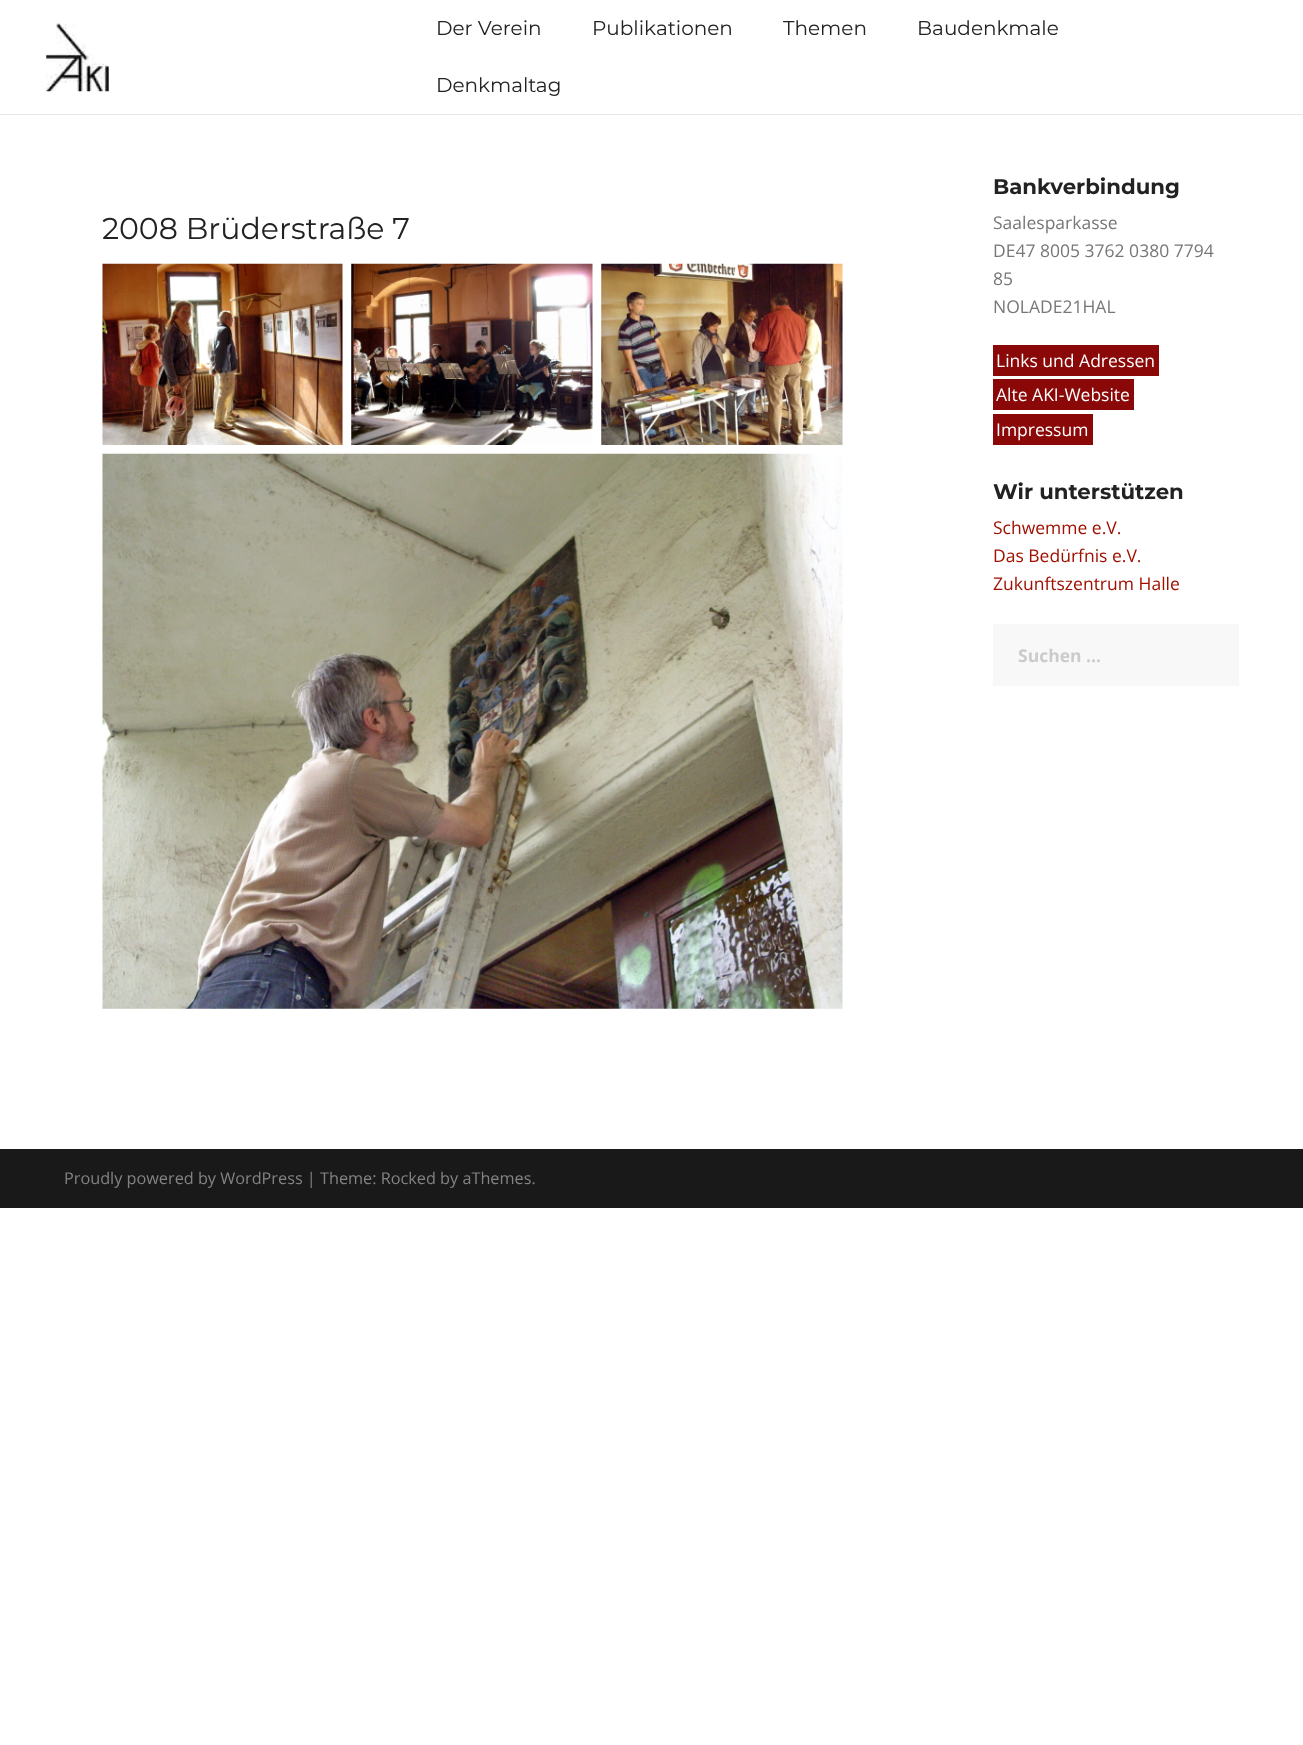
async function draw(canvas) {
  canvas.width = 1303;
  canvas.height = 1745;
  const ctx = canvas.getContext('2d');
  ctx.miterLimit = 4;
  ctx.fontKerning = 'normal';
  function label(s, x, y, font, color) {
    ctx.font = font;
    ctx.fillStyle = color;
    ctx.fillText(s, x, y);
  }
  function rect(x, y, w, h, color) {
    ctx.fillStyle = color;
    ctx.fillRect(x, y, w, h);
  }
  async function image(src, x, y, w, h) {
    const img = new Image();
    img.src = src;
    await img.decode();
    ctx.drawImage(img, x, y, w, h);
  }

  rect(0, 0, 1303, 1745, '#fff');
  await image('assets/img1.png', 46, 23, 63, 69);
  label('Der Verein', 436, 35, '20px Montserrat', '#222');
  label('Publikationen', 592, 35, '20px Montserrat', '#222');
  label('Themen', 783, 35, '20px Montserrat', '#222');
  label('Baudenkmale', 917, 35, '20px Montserrat', '#222');
  label('Denkmaltag', 436, 92, '20px Montserrat', '#222');
  rect(0, 114, 1303, 1, '#e6e6e6');
  label('2008 Brüderstraße 7', 102, 239, '30px Montserrat', '#222');
  await image('assets/img2.png', 102, 263, 241, 182);
  await image('assets/img3.png', 351, 263, 242, 182);
  await image('assets/img4.png', 601, 263, 242, 182);
  await image('assets/img5.png', 102, 453, 741, 556);
  label('Bankverbindung', 993, 194, 'bold 21.25px Montserrat', '#222');
  label('Saalesparkasse', 993, 229, '17.5px Open Sans', '#777');
  label('DE47 8005 3762 0380 7794', 993, 257, '17.5px Open Sans', '#777');
  label('85', 993, 285, '17.5px Open Sans', '#777');
  label('NOLADE21HAL', 993, 313, '17.5px Open Sans', '#777');
  rect(993, 345, 166, 31, '#8a0808');
  label('Links und Adressen', 996, 367, '17.5px Open Sans', '#fff');
  rect(993, 379, 141, 31, '#8a0808');
  label('Alte AKI-Website', 996, 401, '17.5px Open Sans', '#fff');
  rect(993, 414, 100, 31, '#8a0808');
  label('Impressum', 996, 436, '17.5px Open Sans', '#fff');
  label('Wir unterstützen', 993, 499, 'bold 21.25px Montserrat', '#222');
  label('Schwemme e.V.', 993, 534, '17.5px Open Sans', '#a01000');
  label('Das Bedürfnis e.V.', 993, 562, '17.5px Open Sans', '#a01000');
  label('Zukunftszentrum Halle', 993, 590, '17.5px Open Sans', '#a01000');
  rect(993, 624, 246, 62, '#f8f8f8');
  label('Suchen …', 1018, 662, 'bold 17.5px Open Sans', '#cbcbcb');
  rect(0, 1149, 1303, 59, '#191919');
  label('Proudly powered by WordPress | Theme: Rocked by aThemes.', 64, 1184, '16.25px Open Sans', '#838383');
}

draw(document.querySelector('canvas'));
